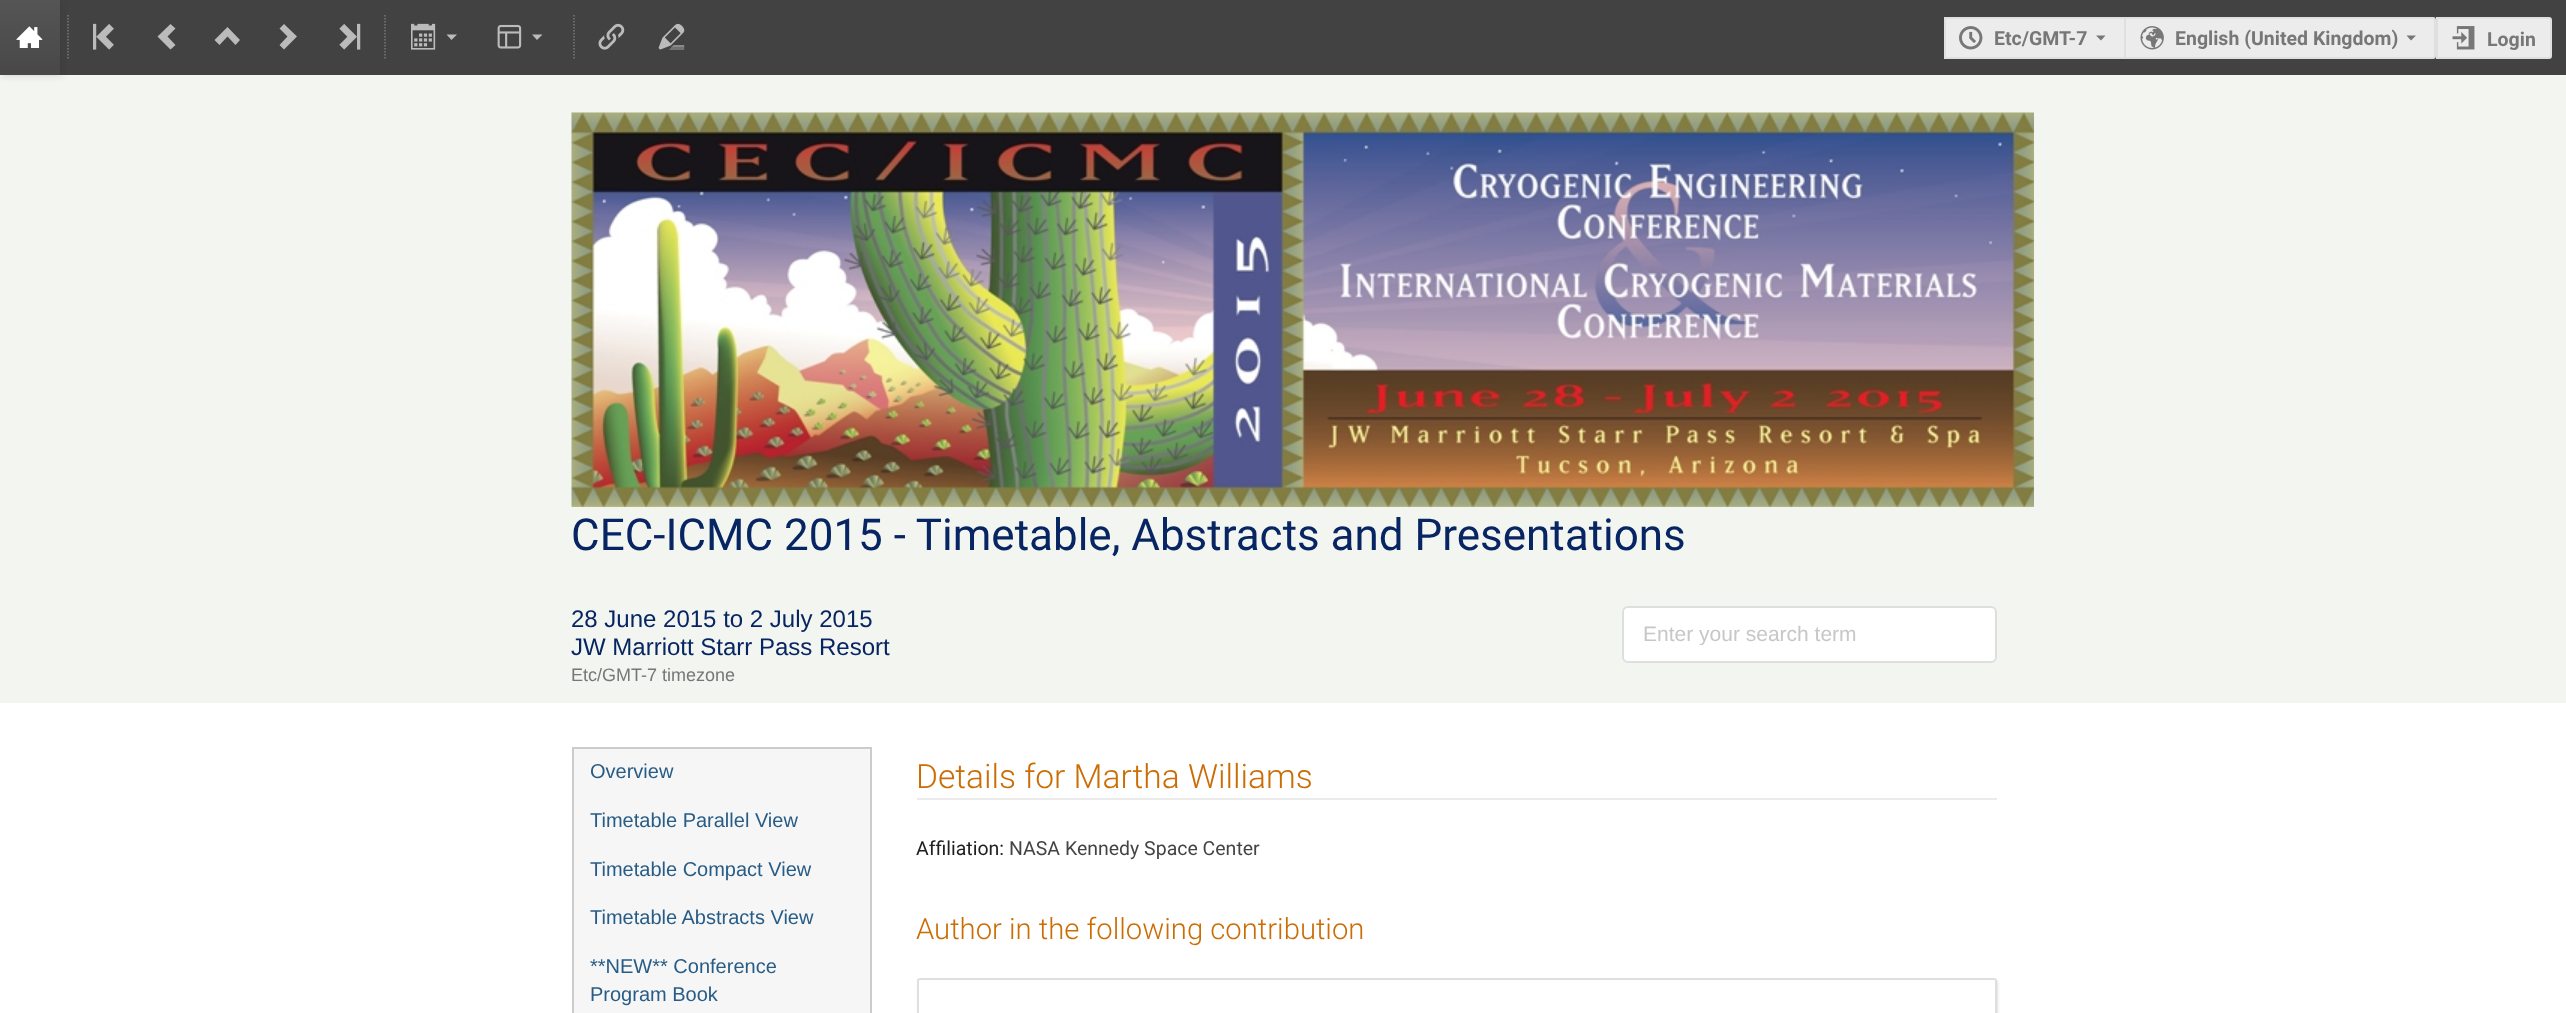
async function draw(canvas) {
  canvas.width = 2566;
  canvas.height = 1013;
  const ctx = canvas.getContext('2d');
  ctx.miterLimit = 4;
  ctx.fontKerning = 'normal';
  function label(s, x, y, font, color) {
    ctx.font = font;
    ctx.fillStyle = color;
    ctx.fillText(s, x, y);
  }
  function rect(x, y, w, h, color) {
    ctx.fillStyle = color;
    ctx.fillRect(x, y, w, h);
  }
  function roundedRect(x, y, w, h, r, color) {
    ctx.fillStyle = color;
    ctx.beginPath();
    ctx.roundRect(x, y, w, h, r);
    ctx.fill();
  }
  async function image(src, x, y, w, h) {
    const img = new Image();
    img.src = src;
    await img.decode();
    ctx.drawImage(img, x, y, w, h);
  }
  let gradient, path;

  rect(0, 0, 2566, 1013, '#fff');
  rect(60, 0, 2506, 75, '#424242');
  rect(0, 75, 2566, 628, '#f2f5f0');
  ctx.fillStyle = '#1414141a';
  ctx.filter = 'blur(3px)';
  ctx.beginPath();
  ctx.rect(2, 2, 60, 75);
  ctx.fill();
  ctx.filter = 'none';
  gradient = ctx.createLinearGradient(30, 0, 30, 75);
  gradient.addColorStop(0, '#555');
  gradient.addColorStop(1, '#484848');
  ctx.fillStyle = gradient;
  ctx.fillRect(0, 0, 60, 75);
  await image('assets/img1.png', 16, 26, 27, 22);
  path = new Path2D('M68 15V60');
  ctx.strokeStyle = '#777';
  ctx.lineWidth = 1.5;
  ctx.setLineDash([1.5, 1.5]);
  ctx.stroke(path);
  await image('assets/img2.png', 93, 23, 21, 27);
  ctx.fillStyle = '#bbb';
  path = new Path2D('M170.5 49.5L175.5 45L167.5 36.5L175.5 28.5L170.5 24L157.5 36.5Z');
  ctx.fill(path);
  path = new Path2D('M214.5 40L219.5 45L227.5 36.5L235.5 45L240 40L227.5 27Z');
  ctx.fill(path);
  path = new Path2D('M284 24L279.5 28.5L287.5 36.5L279.5 45L284 49.5L297 36.5Z');
  ctx.fill(path);
  await image('assets/img3.png', 339, 23, 22, 27);
  path = new Path2D('M385 15V60');
  ctx.stroke(path);
  await image('assets/img4.png', 411, 23, 25, 27);
  path = new Path2D('M446.5 34.5L451.5 40L457 34.5Z');
  ctx.fill(path);
  await image('assets/img5.png', 497, 24, 25, 25);
  path = new Path2D('M532 34.5L537 40L542.5 34.5Z');
  ctx.fill(path);
  path = new Path2D('M574 15V60');
  ctx.stroke(path);
  await image('assets/img6.png', 598, 23, 27, 27);
  await image('assets/img7.png', 658, 23, 27, 27);
  rect(1946, 19, 178, 38, '#ececec');
  rect(1944, 17, 180, 2, '#dfdfdf');
  rect(1944, 57, 180, 2, '#dfdfdf');
  rect(1944, 17, 2, 42, '#dfdfdf');
  await image('assets/img8.png', 1959, 26, 24, 24);
  label('Etc/GMT-7', 1994, 45, 'bold 19.5px Roboto', '#777');
  path = new Path2D('M2096 35.5L2101 40.5L2105.5 35.5Z');
  ctx.fill(path);
  ctx.fillStyle = '#ececec';
  ctx.beginPath();
  ctx.roundRect(2125, 18, 310, 40, [0, 2, 2, 0]);
  ctx.fill();
  ctx.strokeStyle = '#dfdfdf';
  ctx.lineWidth = 2;
  ctx.setLineDash([]);
  ctx.stroke();
  await image('assets/img9.png', 2140, 26, 24, 24);
  label('English (United Kingdom)', 2175, 45, 'bold 19.5px Roboto', '#777');
  path = new Path2D('M2406.5 35.5L2411 40.5L2416 35.5Z');
  ctx.fill(path);
  ctx.fillStyle = '#ececec';
  ctx.beginPath();
  ctx.roundRect(2437, 18, 114, 40, [0, 2, 2, 0]);
  ctx.fill();
  ctx.stroke();
  await image('assets/img10.png', 2452, 26, 23, 24);
  label('Login', 2487, 46, 'bold 19.5px Roboto', '#777');
  await image('assets/img11.png', 571, 112, 1463, 395);
  label('CEC-ICMC 2015 - Timetable, Abstracts and Presentations', 571, 550, '44px Roboto', '#082563');
  label('28 June 2015 to 2 July 2015', 571, 627, '24px Liberation Sans', '#082563');
  label('JW Marriott Starr Pass Resort', 571, 655, '24px Liberation Sans', '#082563');
  label('Etc/GMT-7 timezone', 571, 681, '18px Liberation Sans', '#777');
  roundedRect(1622, 606, 375, 57, 6, '#fff');
  ctx.beginPath();
  ctx.roundRect(1623, 607, 373, 55, 5);
  ctx.strokeStyle = '#22242626';
  ctx.stroke();
  ctx.save();
  ctx.beginPath();
  ctx.rect(1644, 621, 294, 24);
  ctx.clip();
  label('Enter your search term', 1643, 641, '21px "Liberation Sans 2"', '#c7c7c7');
  ctx.restore();
  ctx.fillStyle = '#f6f6f6';
  ctx.beginPath();
  ctx.rect(573, 748, 298, 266);
  ctx.fill();
  ctx.strokeStyle = '#ccc';
  ctx.stroke();
  label('Overview', 590, 778, '20px "Liberation Sans 2"', '#275c86');
  label('Timetable Parallel View', 590, 827, '20px "Liberation Sans 2"', '#275c86');
  label('Timetable Compact View', 590, 876, '20px "Liberation Sans 2"', '#275c86');
  label('Timetable Abstracts View', 590, 924, '20px "Liberation Sans 2"', '#275c86');
  label('**NEW** Conference', 590, 973, '20px "Liberation Sans 2"', '#275c86');
  label('Program Book', 590, 1001, '20px "Liberation Sans 2"', '#275c86');
  rect(917, 798, 1080, 2, '#ebebeb');
  label('Details for Martha Williams', 916, 788, '300 33.5px Roboto', '#cb6d04');
  label('Affiliation:', 916, 855, '19.5px Roboto', '#212121');
  label('NASA Kennedy Space Center', 1009, 855, '19.5px Roboto', '#444');
  label('Author in the following contribution', 916, 939, '300 29.25px Roboto', '#cb6d04');
  ctx.fillStyle = '#e1e1e1';
  ctx.filter = 'blur(1px)';
  ctx.beginPath();
  ctx.roundRect(918, 980, 1080, 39, 3);
  ctx.fill();
  ctx.filter = 'none';
  ctx.fillStyle = '#fff';
  ctx.beginPath();
  ctx.roundRect(918, 979, 1078, 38, 2);
  ctx.fill();
  ctx.strokeStyle = '#dfdfdf';
  ctx.stroke();
}

draw(document.querySelector('canvas'));
